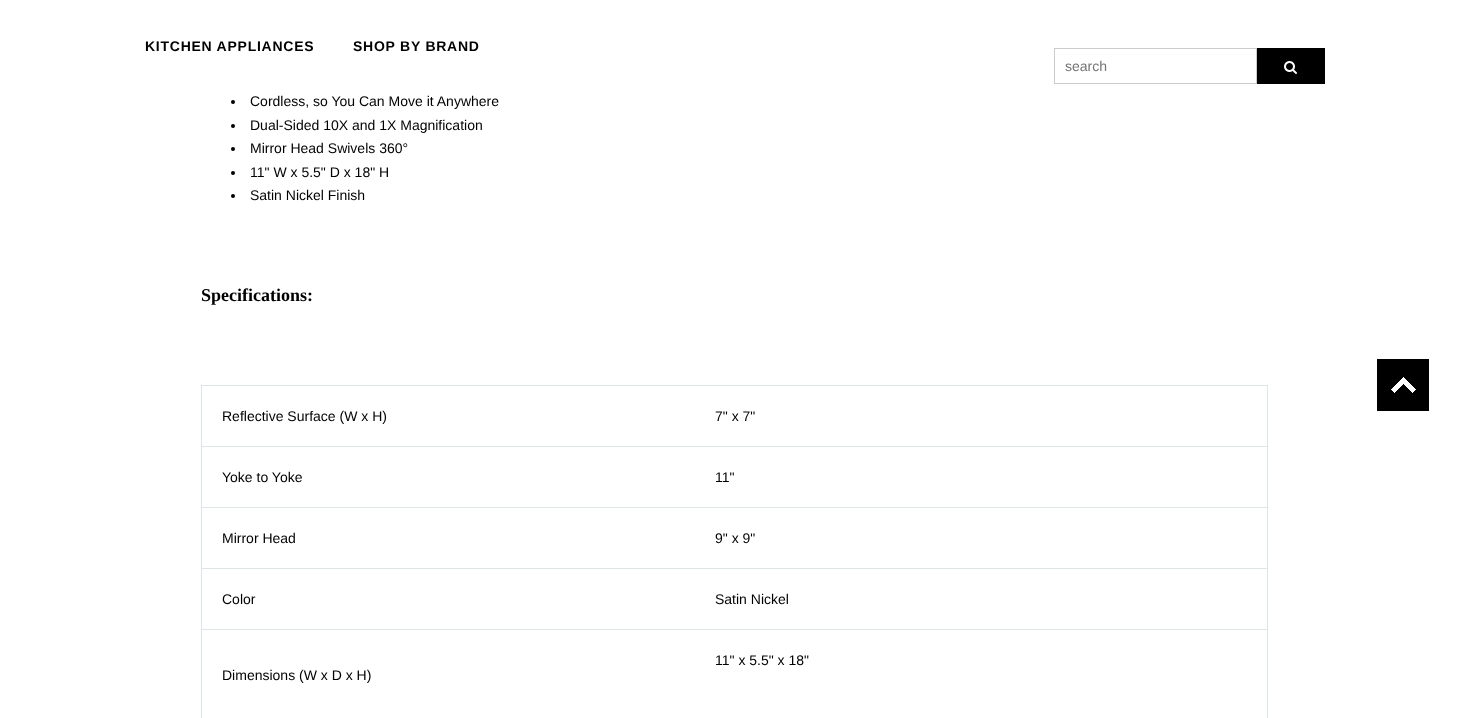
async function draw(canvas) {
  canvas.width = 1469;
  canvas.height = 718;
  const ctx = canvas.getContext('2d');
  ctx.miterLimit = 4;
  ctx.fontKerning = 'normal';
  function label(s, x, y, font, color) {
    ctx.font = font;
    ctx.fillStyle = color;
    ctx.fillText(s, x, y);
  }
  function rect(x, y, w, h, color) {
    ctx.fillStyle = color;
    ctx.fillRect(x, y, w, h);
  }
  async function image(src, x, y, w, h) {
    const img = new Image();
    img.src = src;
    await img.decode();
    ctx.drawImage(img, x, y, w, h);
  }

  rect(0, 0, 1469, 718, '#fff');
  ctx.letterSpacing = '0.75px';
  label('KITCHEN APPLIANCES', 145, 51, 'bold 14px Liberation Sans', '#000');
  label('SHOP BY BRAND', 353, 51, 'bold 14px Liberation Sans', '#000');
  ctx.strokeStyle = '#cbcbcb';
  ctx.strokeRect(1054.5, 48.5, 202, 35);
  ctx.letterSpacing = '0px';
  label('search', 1065, 71, '14px Liberation Sans', '#757575');
  rect(1257, 48, 68, 36, '#000');
  await image('assets/img1.png', 1284, 61, 13, 13);
  ctx.beginPath();
  ctx.arc(233, 102, 2, 0, 2 * Math.PI);
  ctx.fill();
  label('Cordless, so You Can Move it Anywhere', 250, 106, '14px Liberation Sans', '#000');
  ctx.beginPath();
  ctx.arc(233, 126, 2, 0, 2 * Math.PI);
  ctx.fill();
  label('Dual-Sided 10X and 1X Magnification', 250, 130, '14px Liberation Sans', '#000');
  ctx.beginPath();
  ctx.arc(233, 149, 2, 0, 2 * Math.PI);
  ctx.fill();
  label('Mirror Head Swivels 360°', 250, 153, '14px Liberation Sans', '#000');
  ctx.beginPath();
  ctx.arc(233, 173, 2, 0, 2 * Math.PI);
  ctx.fill();
  label('11" W x 5.5" D x 18" H', 250, 177, '14px Liberation Sans', '#000');
  ctx.beginPath();
  ctx.arc(233, 196, 2, 0, 2 * Math.PI);
  ctx.fill();
  label('Satin Nickel Finish', 250, 200, '14px Liberation Sans', '#000');
  label('Specifications:', 201, 301, 'bold 18px Liberation Serif', '#000');
  rect(201, 385, 1067, 1, '#dfe4e6');
  rect(1267, 385, 1, 333, '#dfe4e6');
  rect(201, 385, 1, 333, '#dfe4e6');
  label('Reflective Surface (W x H)', 222, 421, '14px Liberation Sans', '#000');
  rect(201, 446, 1067, 1, '#dfe4e6');
  label('7" x 7"', 715, 421, '14px Liberation Sans', '#000');
  label('Yoke to Yoke', 222, 482, '14px Liberation Sans', '#000');
  rect(201, 507, 1067, 1, '#dfe4e6');
  label('11"', 715, 482, '14px Liberation Sans', '#000');
  label('Mirror Head', 222, 543, '14px Liberation Sans', '#000');
  rect(201, 568, 1067, 1, '#dfe4e6');
  label('9" x 9"', 715, 543, '14px Liberation Sans', '#000');
  label('Color', 222, 604, '14px Liberation Sans', '#000');
  rect(201, 629, 1067, 1, '#dfe4e6');
  label('Satin Nickel', 715, 604, '14px Liberation Sans', '#000');
  label('11" x 5.5" x 18"', 715, 665, '14px Liberation Sans', '#000');
  label('Dimensions (W x D x H)', 222, 680, '14px Liberation Sans', '#000');
  rect(1377, 359, 52, 52, '#000');
  await image('assets/img2.png', 1391, 377, 25, 16);
}

draw(document.querySelector('canvas'));
